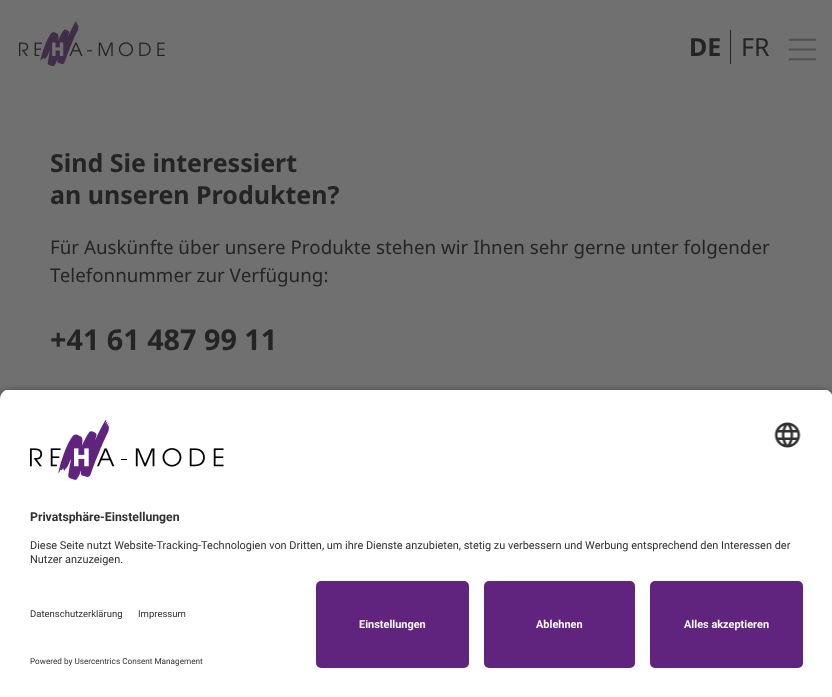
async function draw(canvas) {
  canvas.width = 832;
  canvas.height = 697;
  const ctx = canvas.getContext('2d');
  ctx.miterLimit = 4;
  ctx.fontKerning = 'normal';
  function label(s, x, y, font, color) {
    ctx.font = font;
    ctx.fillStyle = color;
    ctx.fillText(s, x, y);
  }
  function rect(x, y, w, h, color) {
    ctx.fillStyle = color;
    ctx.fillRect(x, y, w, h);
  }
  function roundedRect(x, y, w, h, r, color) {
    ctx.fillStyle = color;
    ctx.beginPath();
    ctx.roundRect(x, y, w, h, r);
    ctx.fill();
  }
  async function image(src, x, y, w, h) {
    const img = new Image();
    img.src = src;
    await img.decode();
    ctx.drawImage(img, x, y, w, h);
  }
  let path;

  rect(0, 0, 832, 697, '#707070');
  await image('assets/img1.png', 19, 21, 146, 45);
  label('DE', 689, 56, 'bold 25px Noto Sans', '#242424');
  rect(730, 30, 1, 34, '#242424');
  label('FR', 741, 56, '25px Noto Sans', '#242424');
  await image('assets/img2.png', 788, 38, 29, 23);
  label('Sind Sie interessiert', 50, 172, 'bold 25px Noto Sans', '#242424');
  label('an unseren Produkten?', 50, 204, 'bold 25px Noto Sans', '#242424');
  label('Für Auskünfte über unsere Produkte stehen wir Ihnen sehr gerne unter folgender', 50, 254, '18.75px Noto Sans', '#242424');
  label('Telefonnummer zur Verfügung:', 50, 282, '18.75px Noto Sans', '#242424');
  label('+41 61 487 99 11', 50, 350, 'bold 28.75px Noto Sans', '#242424');
  ctx.fillStyle = '#000000cc';
  ctx.filter = 'blur(4.5px)';
  ctx.beginPath();
  ctx.roundRect(0, 393, 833, 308, 10);
  ctx.fill();
  ctx.filter = 'none';
  ctx.save();
  path = new Path2D('M10 389H823C828.5 389 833 393.5 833 399V571H0V399C0 393.5 4.5 389 10 389Z');
  ctx.clip(path);
  rect(0, 390, 832, 181, '#fff');
  ctx.restore();
  await image('assets/img3.png', 30, 420, 194, 60);
  await image('assets/img4.png', 774, 422, 27, 26);
  label('Privatsphäre-Einstellungen', 30, 521, 'bold 12.25px Roboto', '#303030');
  label('Diese Seite nutzt Website-Tracking-Technologien von Dritten, um ihre Dienste anzubieten, stetig zu verbessern und Werbung entsprechend den Interessen der', 30, 549, '10.95px Roboto', '#303030');
  label('Nutzer anzuzeigen.', 30, 563, '10.95px Roboto', '#303030');
  rect(0, 571, 832, 126, '#fff');
  label('Datenschutzerklärung', 30, 617, '9.5px Roboto', '#303030');
  label('Impressum', 138, 617, '9.5px Roboto', '#303030');
  label('Powered by Usercentrics Consent Management', 30, 664, '8.2px Roboto', '#303030');
  roundedRect(316, 581, 153, 87, 5, '#60247e');
  label('Einstellungen', 359, 628, 'bold 10.95px Roboto', '#fafafa');
  roundedRect(484, 581, 151, 87, 5, '#60247e');
  label('Ablehnen', 536, 628, 'bold 10.95px Roboto', '#fafafa');
  roundedRect(650, 581, 153, 87, 5, '#60247e');
  label('Alles akzeptieren', 684, 628, 'bold 10.95px Roboto', '#fafafa');
}

draw(document.querySelector('canvas'));
